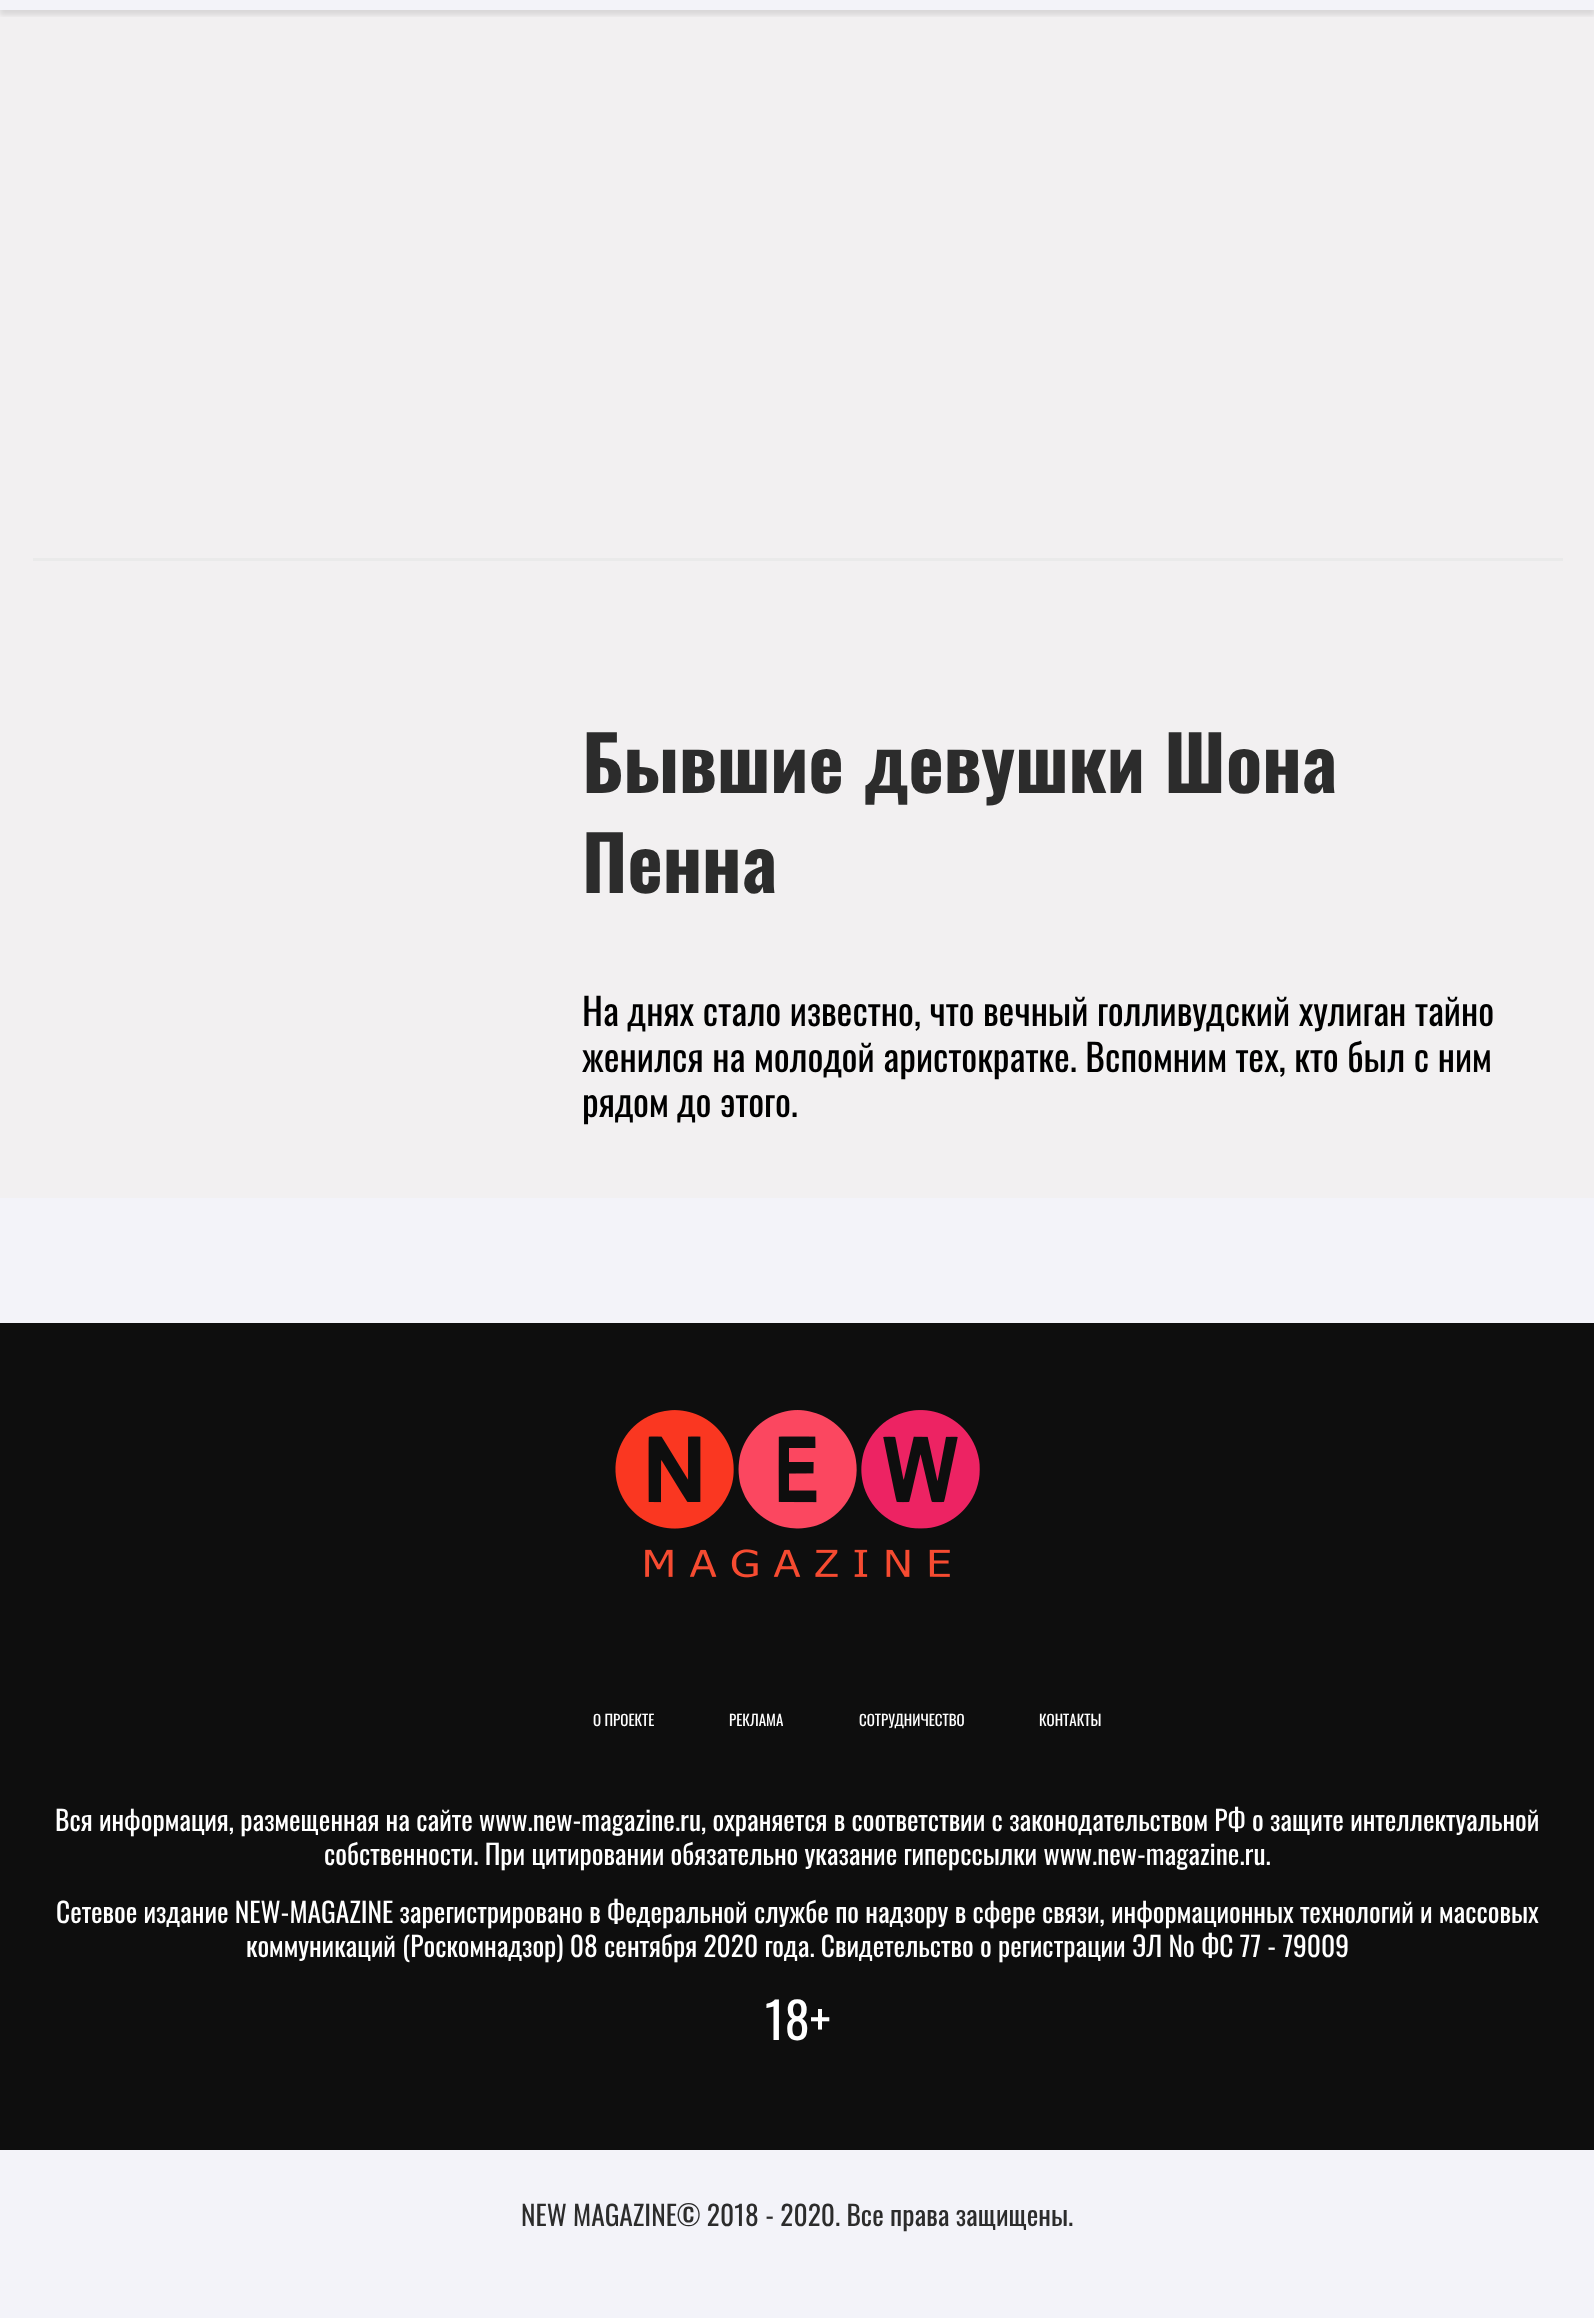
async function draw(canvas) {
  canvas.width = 1594;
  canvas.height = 2318;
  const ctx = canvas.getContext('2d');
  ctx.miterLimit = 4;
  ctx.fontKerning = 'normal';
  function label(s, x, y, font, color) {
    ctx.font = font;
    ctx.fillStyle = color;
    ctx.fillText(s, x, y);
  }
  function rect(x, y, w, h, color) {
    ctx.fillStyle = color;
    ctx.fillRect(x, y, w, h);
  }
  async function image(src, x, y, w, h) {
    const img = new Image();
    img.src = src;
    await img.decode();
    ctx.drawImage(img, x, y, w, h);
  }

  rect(0, 0, 1594, 2318, '#f3f3f9');
  rect(0, 10, 1594, 1188, '#f2f0f1');
  ctx.save();
  ctx.beginPath();
  ctx.rect(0, 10, 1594, 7);
  ctx.clip();
  ctx.fillStyle = '#0000001a';
  ctx.filter = 'blur(2.5px)';
  ctx.beginPath();
  ctx.rect(0, -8, 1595, 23);
  ctx.fill();
  ctx.filter = 'none';
  ctx.restore();
  rect(33, 558, 1530, 3, '#eaeaea');
  label('Бывшие девушки Шона', 582, 793, 'bold 75px Oswald', '#2c2c2c');
  label('Пенна', 582, 893, 'bold 75px Oswald', '#2c2c2c');
  label('На днях стало известно, что вечный голливудский хулиган тайно', 582, 1026, '37.5px Oswald', '#000');
  label('женился на молодой аристократке. Вспомним тех, кто был с ним', 582, 1072, '37.5px Oswald', '#000');
  label('рядом до этого.', 582, 1117, '37.5px Oswald', '#000');
  rect(0, 1323, 1594, 827, '#0e0e0e');
  await image('assets/img1.png', 615, 1410, 365, 168);
  label('О ПРОЕКТЕ', 593, 1726, '15px Oswald', '#fff');
  label('РЕКЛАМА', 729, 1726, '15px Oswald', '#fff');
  label('СОТРУДНИЧЕСТВО', 859, 1726, '15px Oswald', '#fff');
  label('КОНТАКТЫ', 1039, 1726, '15px Oswald', '#fff');
  label('Вся информация, размещенная на сайте www.new-magazine.ru, охраняется в соответствии с законодательством РФ о защите интеллектуальной', 55, 1831, '27.5px Oswald', '#fff');
  label('собственности. При цитировании обязательно указание гиперссылки www.new-magazine.ru.', 324, 1865, '27.5px Oswald', '#fff');
  label('Сетевое издание NEW-MAGAZINE зарегистрировано в Федеральной службе по надзору в сфере связи, информационных технологий и массовых', 56, 1923, '27.5px Oswald', '#fff');
  label('коммуникаций (Роскомнадзор) 08 сентября 2020 года. Свидетельство о регистрации ЭЛ № ФС 77 - 79009', 246, 1957, '27.5px Oswald', '#fff');
  label('18+', 765, 2040, '50px Oswald', '#fff');
  label('NEW MAGAZINE© 2018 - 2020. Все права защищены.', 521, 2226, '27.5px Oswald', '#2c2c2c');
}

draw(document.querySelector('canvas'));
